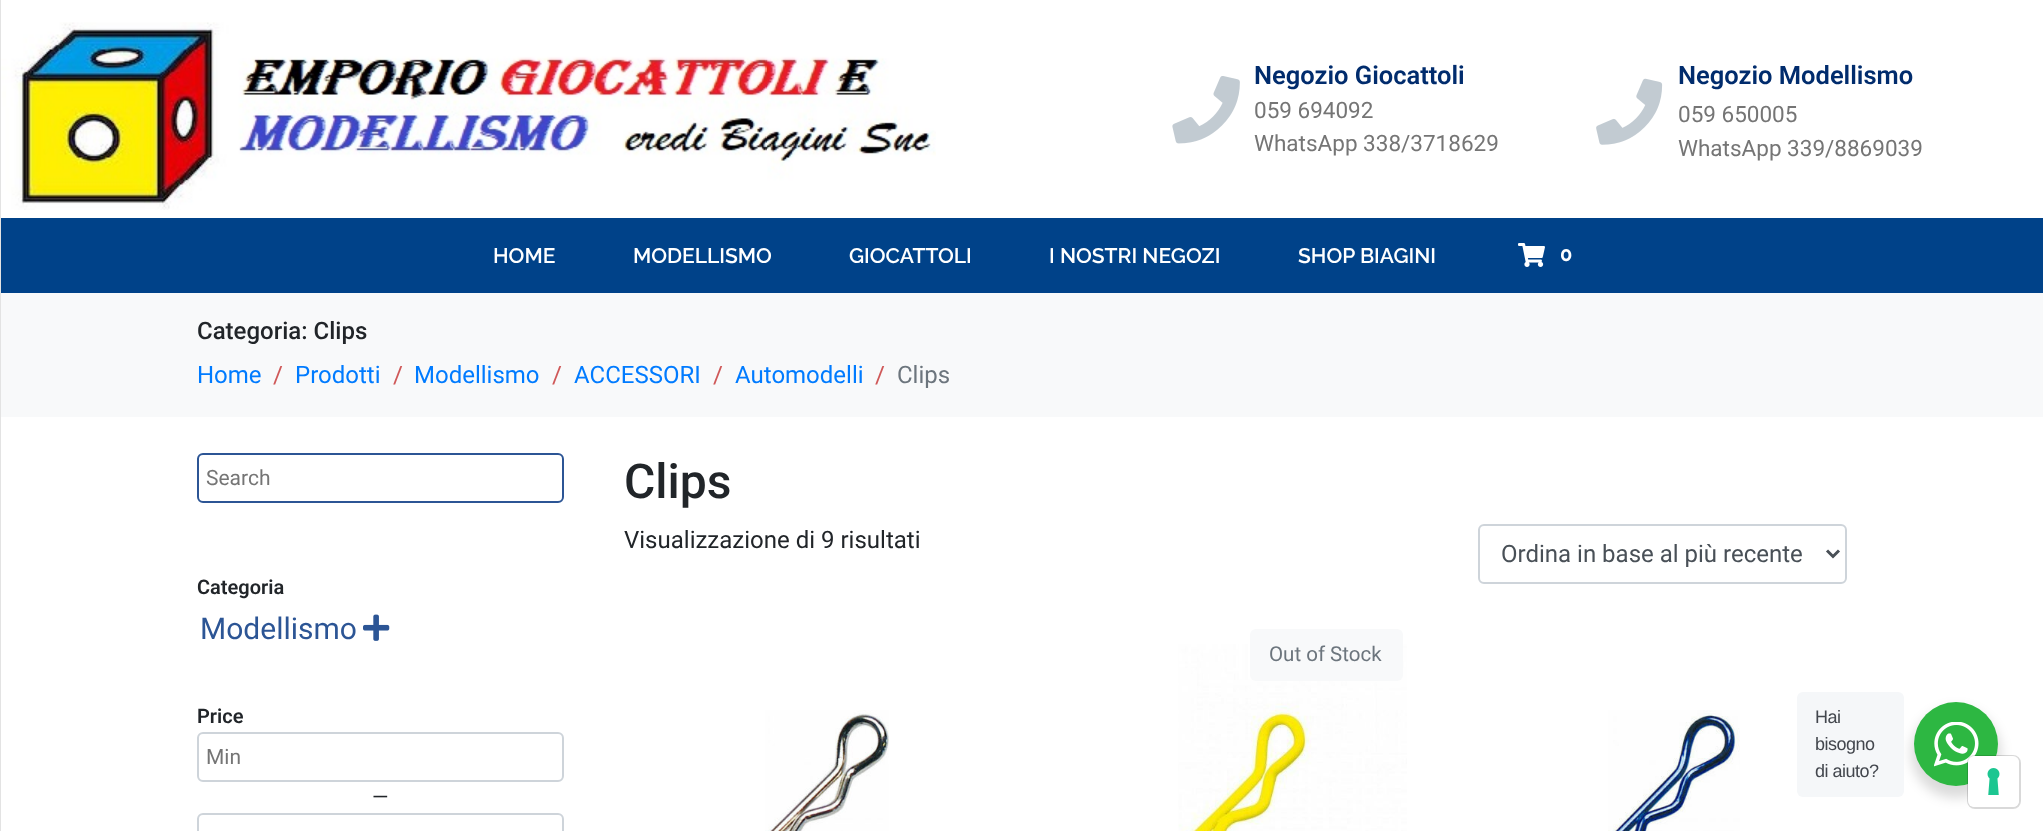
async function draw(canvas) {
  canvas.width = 2043;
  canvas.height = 831;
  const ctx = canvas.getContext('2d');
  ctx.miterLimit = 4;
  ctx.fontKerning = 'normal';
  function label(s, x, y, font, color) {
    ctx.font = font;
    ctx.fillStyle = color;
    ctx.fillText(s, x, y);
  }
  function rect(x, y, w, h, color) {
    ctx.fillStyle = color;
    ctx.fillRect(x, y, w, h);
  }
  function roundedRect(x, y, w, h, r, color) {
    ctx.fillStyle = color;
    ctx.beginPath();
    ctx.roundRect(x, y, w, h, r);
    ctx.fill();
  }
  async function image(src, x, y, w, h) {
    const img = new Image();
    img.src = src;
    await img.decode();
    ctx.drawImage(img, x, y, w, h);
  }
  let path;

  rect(0, 0, 2043, 831, '#fff');
  await image('assets/img1.png', 1, 22, 935, 188);
  await image('assets/img2.png', 1172, 76, 68, 68);
  label('Negozio Giocattoli', 1254, 84, '600 25.5px Roboto', '#012c6d');
  label('059 694092', 1254, 118, '22.5px Roboto', '#757575');
  label('WhatsApp 338/3718629', 1254, 151, '22.5px Roboto', '#757575');
  await image('assets/img3.png', 1596, 78, 67, 67);
  label('Negozio Modellismo', 1678, 84, '600 25.5px Roboto', '#012c6d');
  label('059 650005', 1678, 122, '22.5px Roboto', '#757575');
  label('WhatsApp 339/8869039', 1678, 156, '22.5px Roboto', '#757575');
  rect(1, 218, 2042, 75, '#004289');
  label('HOME', 493, 263, '600 21px Raleway', '#fff');
  label('MODELLISMO', 633, 263, '600 21px Raleway', '#fff');
  label('GIOCATTOLI', 849, 263, '600 21px Raleway', '#fff');
  label('I NOSTRI NEGOZI', 1049, 263, '600 21px Raleway', '#fff');
  label('SHOP BIAGINI', 1298, 263, '600 21px Raleway', '#fff');
  rect(0, 0, 1, 831, '#e3e3e3');
  await image('assets/img4.png', 1518, 243, 27, 24);
  label('0', 1560, 261, 'bold 20px Raleway', '#fff');
  rect(1, 293, 2042, 124, '#f8f9fa');
  label('Categoria: Clips', 197, 339, '500 24px Roboto', '#212529');
  label('Home', 197, 383, '24px Roboto', '#007bff');
  label('/', 273, 383, '24px Roboto', '#cf5858');
  label('Prodotti', 295, 383, '24px Roboto', '#007bff');
  label('/', 393, 383, '24px Roboto', '#cf5858');
  label('Modellismo', 414, 383, '24px Roboto', '#007bff');
  label('/', 552, 383, '24px Roboto', '#cf5858');
  label('ACCESSORI', 574, 383, '24px Roboto', '#007bff');
  label('/', 713, 383, '24px Roboto', '#cf5858');
  label('Automodelli', 735, 383, '24px Roboto', '#007bff');
  label('/', 875, 383, '24px Roboto', '#cf5858');
  label('Clips', 897, 383, '24px Roboto', '#6c757d');
  ctx.beginPath();
  ctx.roundRect(198, 454, 365, 48, 5);
  ctx.strokeStyle = '#2c5595';
  ctx.lineWidth = 2;
  ctx.stroke();
  label('Search', 206, 485, '21px Roboto', '#757575');
  label('Categoria', 197, 594, '600 20px Roboto', '#212529');
  label('Modellismo', 200, 639, '30px Roboto', '#2c5595');
  await image('assets/img5.png', 363, 614, 27, 27);
  label('Price', 197, 723, '600 20px Roboto', '#212529');
  ctx.beginPath();
  ctx.roundRect(198, 733, 365, 48, 5);
  ctx.strokeStyle = '#ced4da';
  ctx.stroke();
  label('Min', 206, 764, '21px Roboto', '#757575');
  label('—', 372, 804, '21px Roboto', '#212529');
  ctx.beginPath();
  ctx.roundRect(198, 814, 365, 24, 5);
  ctx.stroke();
  label('Clips', 624, 498, '500 48px Roboto', '#212529');
  label('Visualizzazione di 9 risultati', 624, 548, '24px Roboto', '#212529');
  ctx.beginPath();
  ctx.roundRect(1479, 525, 367, 58, 5);
  ctx.stroke();
  path = new Path2D('M1827 550.5L1833 556.5L1839 550.5');
  ctx.strokeStyle = '#495057';
  ctx.lineWidth = 3;
  ctx.stroke(path);
  label('Ordina in base al più recente', 1501, 562, '24px Roboto', '#495057');
  await image('assets/img6.png', 1178, 644, 229, 187);
  roundedRect(1250, 629, 153, 52, 6, '#f8f9fa');
  label('Out of Stock', 1269, 661, '20.5px Roboto', '#6c757d');
  await image('assets/img7.png', 765, 710, 124, 121);
  await image('assets/img8.png', 1608, 710, 132, 121);
  ctx.fillStyle = '#00000024';
  ctx.filter = 'blur(6px)';
  ctx.beginPath();
  ctx.roundRect(1911, 708, 90, 90, 45);
  ctx.fill();
  ctx.filter = 'none';
  roundedRect(1797, 692, 107, 105, 6, '#f5f7f9');
  ctx.letterSpacing = '-0.5px';
  label('Hai', 1815, 723, '18px Liberation Sans', '#43474e');
  label('bisogno', 1815, 750, '18px Liberation Sans', '#43474e');
  label('di aiuto?', 1815, 777, '18px Liberation Sans', '#43474e');
  ctx.fillStyle = '#2db742';
  ctx.beginPath();
  ctx.arc(1956, 744, 42, 0, 2 * Math.PI);
  ctx.fill();
  await image('assets/img9.png', 1934, 722, 45, 45);
  ctx.beginPath();
  ctx.roundRect(1968, 756, 52, 52, 7);
  ctx.strokeStyle = '#00000026';
  ctx.lineWidth = 2;
  ctx.stroke();
  roundedRect(1968, 756, 51, 51, 6, '#fff');
  await image('assets/img10.png', 1987, 768, 13, 27);
}

draw(document.querySelector('canvas'));
